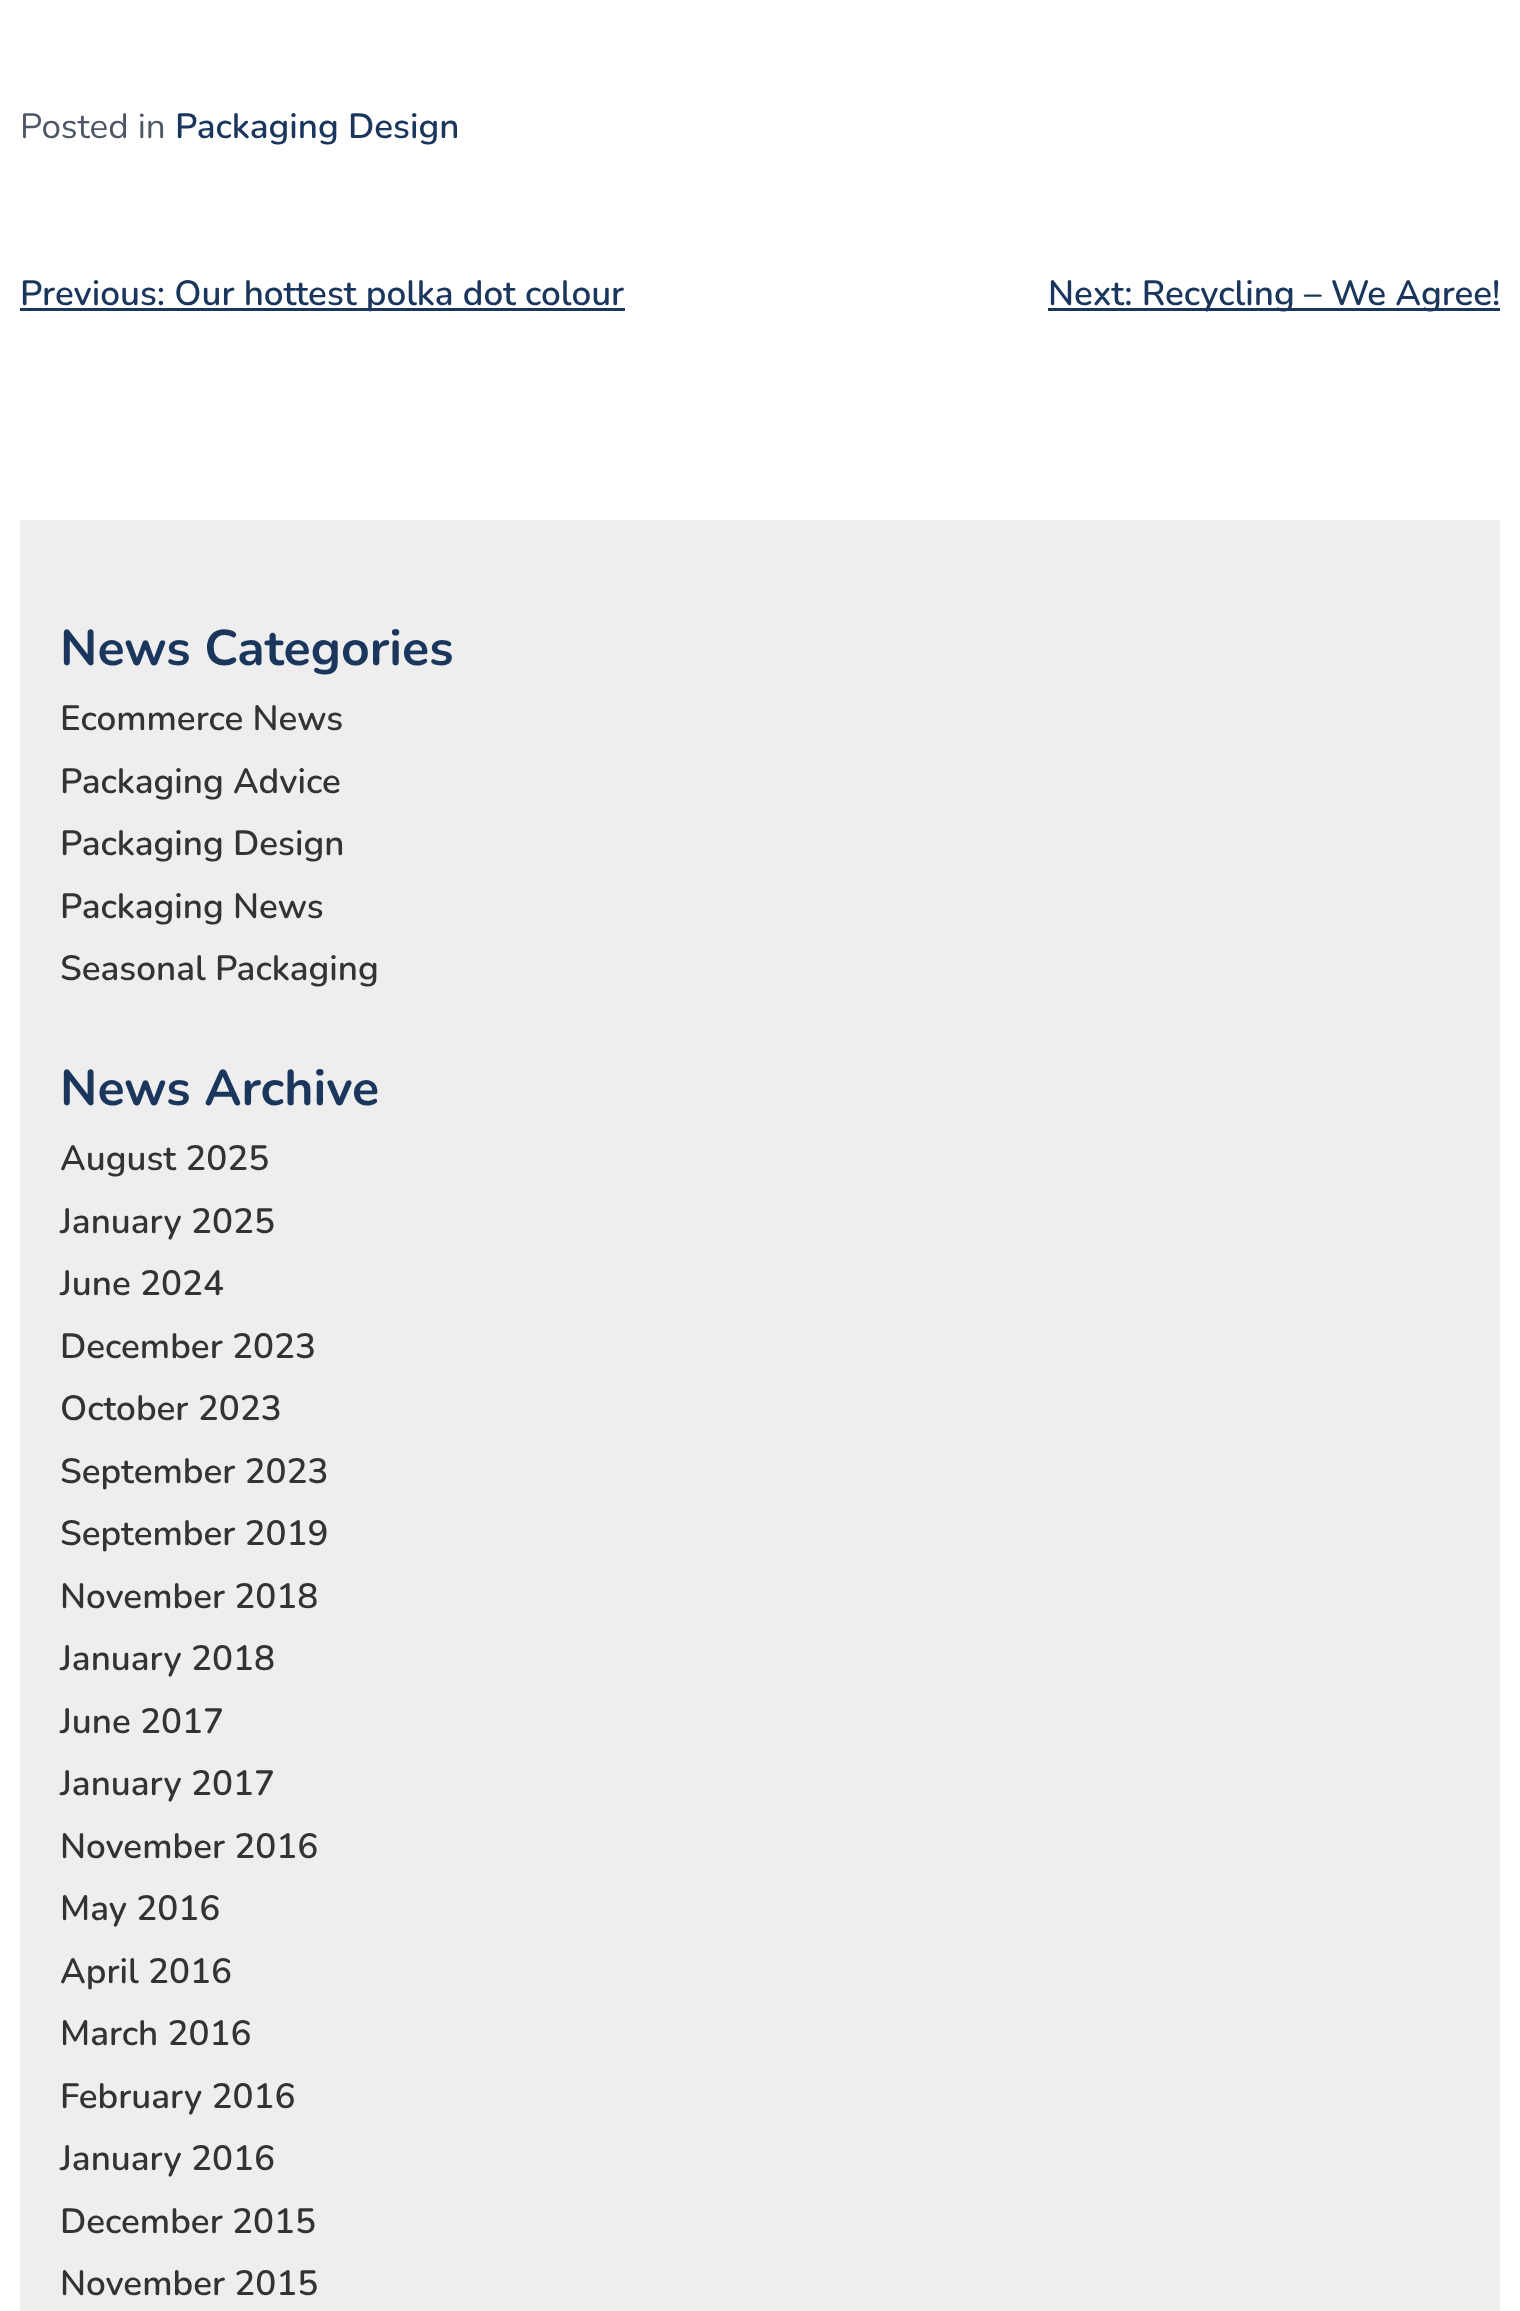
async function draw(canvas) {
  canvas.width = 1520;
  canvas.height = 2311;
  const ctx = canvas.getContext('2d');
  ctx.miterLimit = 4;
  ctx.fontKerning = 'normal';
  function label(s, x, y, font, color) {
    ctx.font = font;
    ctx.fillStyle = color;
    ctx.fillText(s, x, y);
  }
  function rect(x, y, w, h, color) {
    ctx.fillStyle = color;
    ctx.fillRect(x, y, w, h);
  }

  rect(0, 0, 1520, 2311, '#fff');
  label('Posted in', 20, 138, '35px Nunito', '#4f5665');
  label('Packaging Design', 175, 138, '600 35px Nunito', '#1b365d');
  rect(20, 308, 605, 3, '#1b365d');
  label('Previous: Our hottest polka dot colour', 20, 305, '600 35px Nunito', '#1b365d');
  rect(1048, 308, 452, 3, '#1b365d');
  label('Next: Recycling – We Agree!', 1048, 305, '600 35px Nunito', '#1b365d');
  rect(20, 520, 1480, 1791, '#eee');
  label('News Categories', 60, 665, 'bold 50px Nunito', '#1b365d');
  label('Ecommerce News', 60, 730, '600 35px Nunito', '#333');
  label('Packaging Advice', 60, 793, '600 35px Nunito', '#333');
  label('Packaging Design', 60, 855, '600 35px Nunito', '#333');
  label('Packaging News', 60, 918, '600 35px Nunito', '#333');
  label('Seasonal Packaging', 60, 980, '600 35px Nunito', '#333');
  label('News Archive', 60, 1105, 'bold 50px Nunito', '#1b365d');
  label('August 2025', 60, 1170, '600 35px Nunito', '#333');
  label('January 2025', 60, 1233, '600 35px Nunito', '#333');
  label('June 2024', 60, 1295, '600 35px Nunito', '#333');
  label('December 2023', 60, 1358, '600 35px Nunito', '#333');
  label('October 2023', 60, 1420, '600 35px Nunito', '#333');
  label('September 2023', 60, 1483, '600 35px Nunito', '#333');
  label('September 2019', 60, 1545, '600 35px Nunito', '#333');
  label('November 2018', 60, 1608, '600 35px Nunito', '#333');
  label('January 2018', 60, 1670, '600 35px Nunito', '#333');
  label('June 2017', 60, 1733, '600 35px Nunito', '#333');
  label('January 2017', 60, 1795, '600 35px Nunito', '#333');
  label('November 2016', 60, 1858, '600 35px Nunito', '#333');
  label('May 2016', 60, 1920, '600 35px Nunito', '#333');
  label('April 2016', 60, 1983, '600 35px Nunito', '#333');
  label('March 2016', 60, 2045, '600 35px Nunito', '#333');
  label('February 2016', 60, 2108, '600 35px Nunito', '#333');
  label('January 2016', 60, 2170, '600 35px Nunito', '#333');
  label('December 2015', 60, 2233, '600 35px Nunito', '#333');
  label('November 2015', 60, 2295, '600 35px Nunito', '#333');
}

draw(document.querySelector('canvas'));
